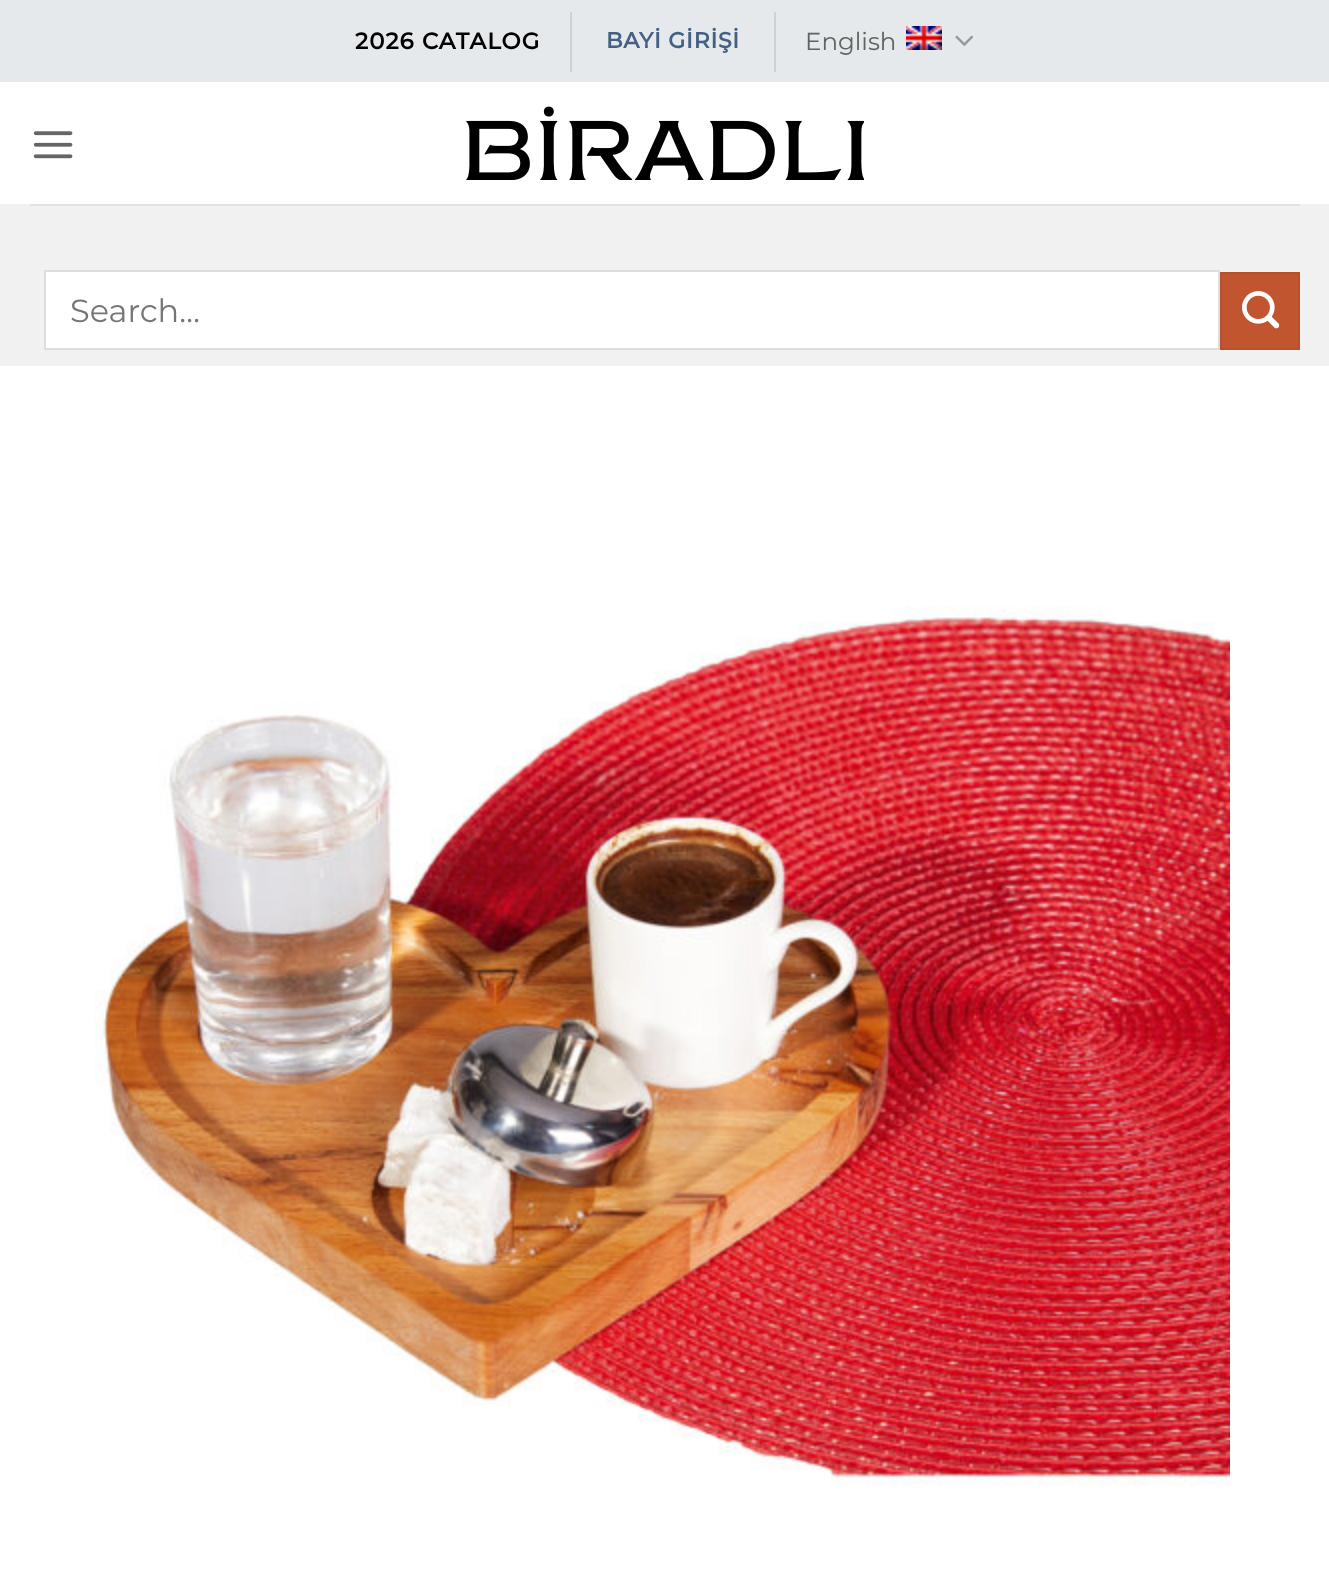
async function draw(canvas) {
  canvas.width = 1329;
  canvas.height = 1571;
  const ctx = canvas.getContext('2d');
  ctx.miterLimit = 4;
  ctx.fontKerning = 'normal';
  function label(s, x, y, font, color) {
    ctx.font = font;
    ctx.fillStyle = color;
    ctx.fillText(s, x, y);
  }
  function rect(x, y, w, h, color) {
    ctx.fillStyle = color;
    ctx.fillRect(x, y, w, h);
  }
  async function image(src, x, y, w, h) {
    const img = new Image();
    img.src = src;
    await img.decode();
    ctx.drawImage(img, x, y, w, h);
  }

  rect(0, 0, 1329, 1571, '#fff');
  rect(0, 0, 1329, 82, '#e5e9ec');
  ctx.letterSpacing = '1.1px';
  label('2026 CATALOG', 355, 49, 'bold 22.75px Montserrat', '#000');
  rect(570, 12, 2, 60, '#ced2d4');
  ctx.letterSpacing = '0.75px';
  label('BAYİ GİRİŞİ', 606, 48, 'bold 22px Montserrat', '#446084');
  rect(774, 12, 2, 60, '#ced2d4');
  ctx.letterSpacing = '0px';
  label('English', 805, 50, '24.5px Montserrat', '#616262');
  await image('assets/img1.png', 906, 26, 36, 24);
  await image('assets/img2.png', 955, 35, 19, 11);
  await image('assets/img3.png', 33, 131, 40, 28);
  await image('assets/img4.png', 466, 106, 398, 74);
  rect(0, 204, 1329, 162, '#f1f1f1');
  rect(30, 204, 1270, 2, '#e0e3e6');
  ctx.fillStyle = '#fff';
  ctx.beginPath();
  ctx.rect(45, 271, 1174, 78);
  ctx.fill();
  ctx.strokeStyle = '#ddd';
  ctx.lineWidth = 2;
  ctx.stroke();
  label('Search…', 70, 322, '32px Montserrat', '#757575');
  ctx.fillStyle = '#c05530';
  ctx.beginPath();
  ctx.rect(1221, 273, 78, 76);
  ctx.fill();
  ctx.strokeStyle = '#b6512e';
  ctx.stroke();
  await image('assets/img5.png', 1242, 291, 38, 38);
  await image('assets/img6.png', 94, 606, 1136, 880);
}

draw(document.querySelector('canvas'));
